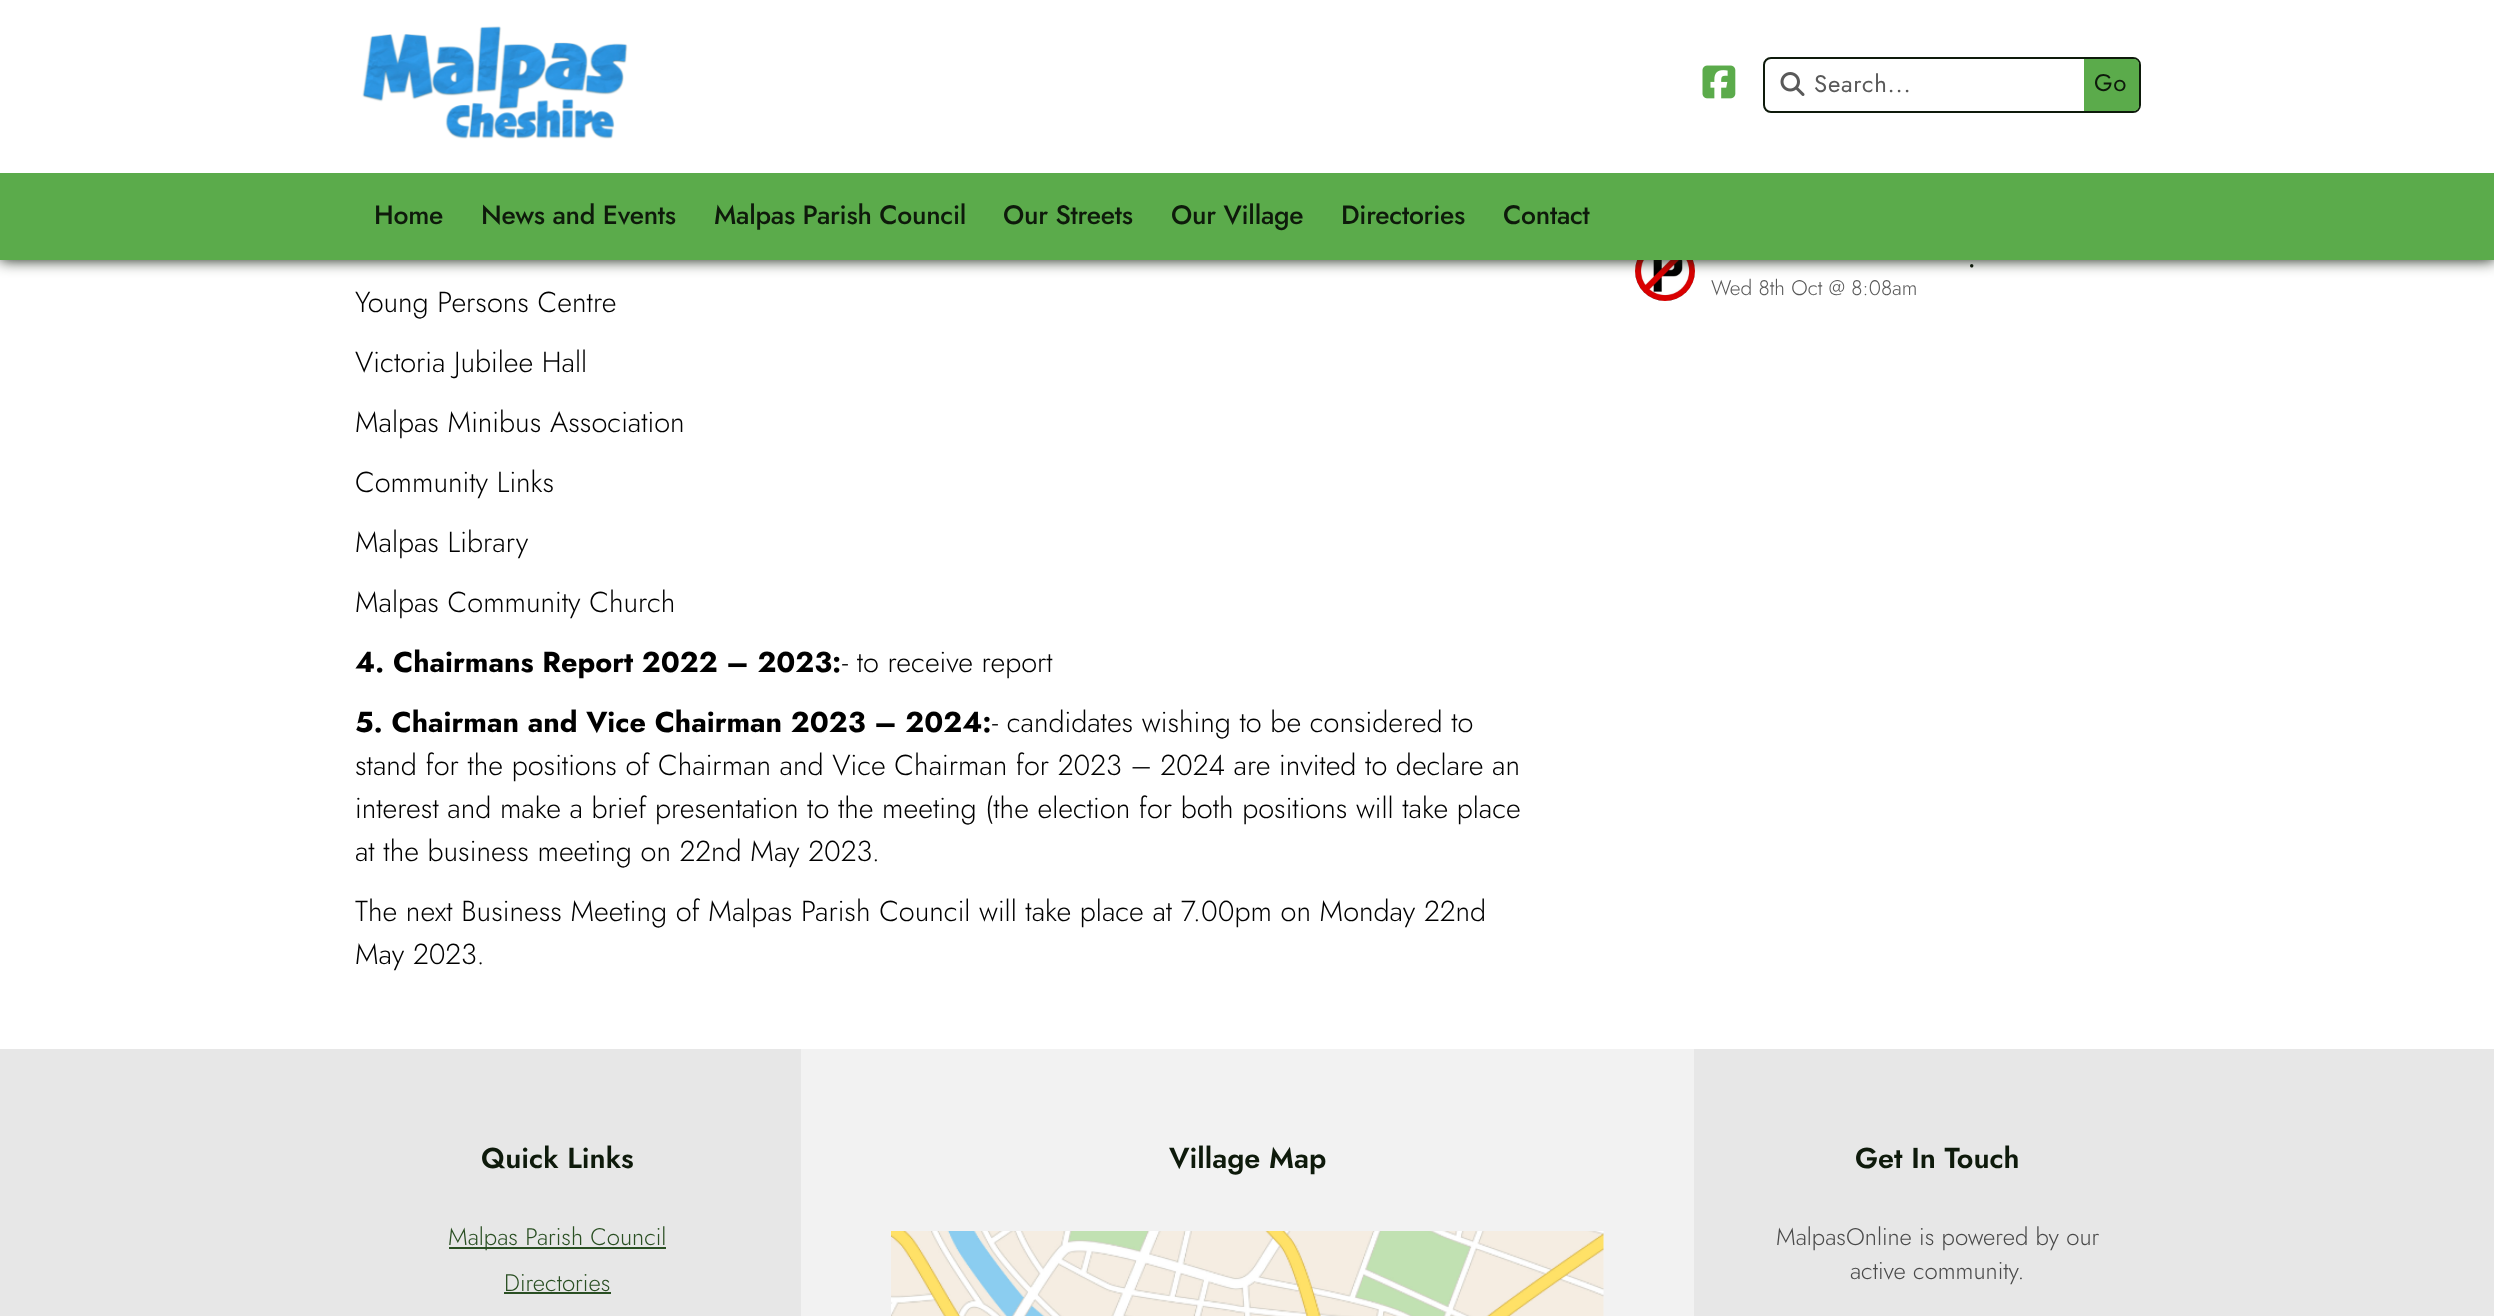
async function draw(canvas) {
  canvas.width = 2494;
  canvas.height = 1316;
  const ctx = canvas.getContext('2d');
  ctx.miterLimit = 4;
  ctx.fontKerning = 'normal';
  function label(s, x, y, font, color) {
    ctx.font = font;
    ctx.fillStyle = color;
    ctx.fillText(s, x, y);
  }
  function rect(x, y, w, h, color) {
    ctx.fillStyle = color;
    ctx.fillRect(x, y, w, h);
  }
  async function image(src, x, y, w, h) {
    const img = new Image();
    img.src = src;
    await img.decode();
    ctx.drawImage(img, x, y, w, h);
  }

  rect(0, 0, 2494, 1316, '#fff');
  await image('assets/img4.png', 1635, 260, 60, 41);
  ctx.fillStyle = '#0e1a0b';
  ctx.filter = 'blur(7.5px)';
  ctx.beginPath();
  ctx.rect(0, 0, 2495, 260);
  ctx.fill();
  ctx.filter = 'none';
  rect(0, 0, 2494, 173, '#fff');
  await image('assets/img1.png', 362, 26, 266, 113);
  await image('assets/img2.png', 1702, 65, 34, 34);
  ctx.beginPath();
  ctx.roundRect(1764, 58, 376, 54, 7);
  ctx.strokeStyle = '#0e1a0b';
  ctx.lineWidth = 2;
  ctx.stroke();
  await image('assets/img3.png', 1780, 72, 25, 24);
  ctx.letterSpacing = '0.75px';
  label('Search...', 1814, 92, '24px Jost', '#595959');
  ctx.fillStyle = '#5bab4b';
  ctx.beginPath();
  ctx.roundRect(2084, 59, 55, 52, [0, 5, 5, 0]);
  ctx.fill();
  label('Go', 2094, 91, '24px Jost', '#0e1a0b');
  rect(0, 173, 2494, 87, '#5bab4b');
  ctx.letterSpacing = '-0.25px';
  label('Home', 374, 224, '500 26.5px Jost', '#0e1a0b');
  label('News and Events', 481, 224, '500 26.5px Jost', '#0e1a0b');
  label('Malpas Parish Council', 714, 224, '500 26.5px Jost', '#0e1a0b');
  label('Our Streets', 1003, 224, '500 26.5px Jost', '#0e1a0b');
  label('Our Village', 1171, 224, '500 26.5px Jost', '#0e1a0b');
  label('Directories', 1341, 224, '500 26.5px Jost', '#0e1a0b');
  label('Contact', 1503, 224, '500 26.5px Jost', '#0e1a0b');
  label('.', 1968, 267, '500 24px Jost', '#0e1a0b');
  ctx.letterSpacing = '0px';
  label('Wed 8th Oct @ 8:08am', 1711, 295, '300 21px Jost', '#595959');
  label('Young Persons Centre', 355, 312, '300 28.8px Jost', '#000');
  label('Victoria Jubilee Hall', 355, 372, '300 28.8px Jost', '#000');
  label('Malpas Minibus Association', 355, 432, '300 28.8px Jost', '#000');
  label('Community Links', 355, 492, '300 28.8px Jost', '#000');
  label('Malpas Library', 355, 552, '300 28.8px Jost', '#000');
  label('Malpas Community Church', 355, 612, '300 28.8px Jost', '#000');
  label('4. Chairmans Report 2022 – 2023:', 355, 672, 'bold 28.8px Jost', '#000');
  label('- to receive report', 842, 672, '300 28.8px Jost', '#000');
  label('5. Chairman and Vice Chairman 2023 – 2024:', 355, 732, 'bold 28.8px Jost', '#000');
  label('- candidates wishing to be considered to', 992, 732, '300 28.8px Jost', '#000');
  label('stand for the positions of Chairman and Vice Chairman for 2023 – 2024 are invited to declare an', 355, 775, '300 28.8px Jost', '#000');
  label('interest and make a brief presentation to the meeting (the election for both positions will take place', 355, 818, '300 28.8px Jost', '#000');
  label('at the business meeting on 22nd May 2023.', 355, 861, '300 28.8px Jost', '#000');
  label('The next Business Meeting of Malpas Parish Council will take place at 7.00pm on Monday 22nd', 355, 921, '300 28.8px Jost', '#000');
  label('May 2023.', 355, 964, '300 28.8px Jost', '#000');
  rect(0, 1049, 2494, 267, '#e7e7e7');
  label('Quick Links', 481, 1168, '600 28.8px Jost', '#0e1a0b');
  rect(449, 1247, 217, 2, '#2a4f23');
  label('Malpas Parish Council', 448, 1245, '300 24px Jost', '#2a4f23');
  label('Directories', 504, 1291, '300 24px Jost', '#2a4f23');
  rect(504, 1292, 107, 2, '#2a4f23');
  rect(801, 1049, 893, 267, '#f2f2f2');
  label('Village Map', 1169, 1168, '600 28.8px Jost', '#0e1a0b');
  await image('assets/img5.png', 891, 1231, 713, 85);
  label('Get In Touch', 1855, 1168, '600 28.8px Jost', '#0e1a0b');
  label('MalpasOnline is powered by our', 1776, 1245, '300 24px Jost', '#4a4a4a');
  label('active community.', 1850, 1279, '300 24px Jost', '#4a4a4a');
}

draw(document.querySelector('canvas'));
